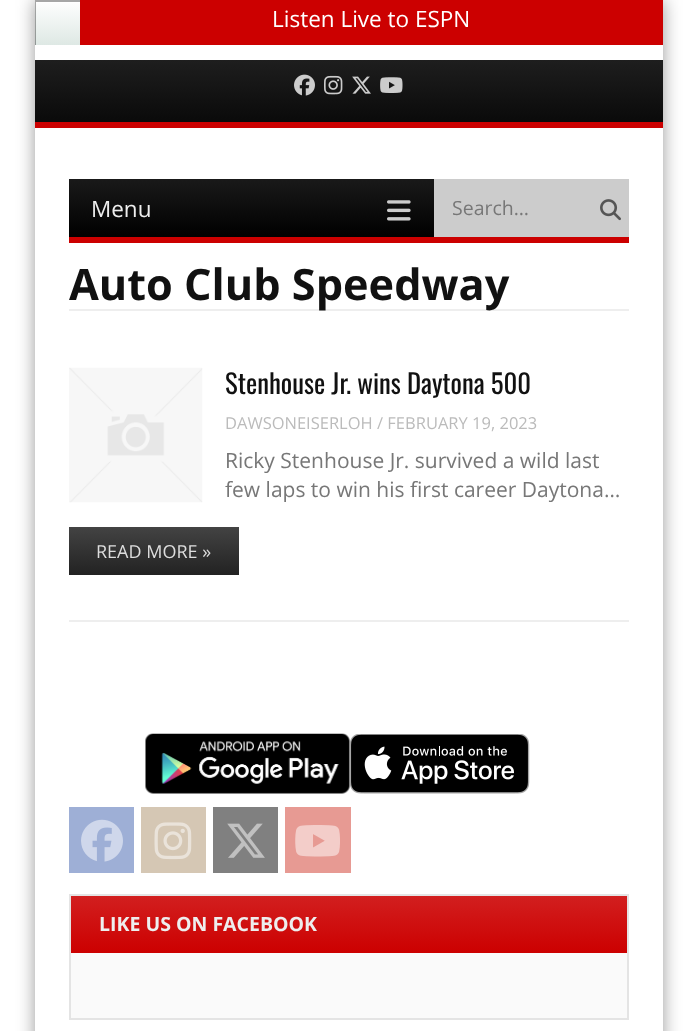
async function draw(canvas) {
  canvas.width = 697;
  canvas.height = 1031;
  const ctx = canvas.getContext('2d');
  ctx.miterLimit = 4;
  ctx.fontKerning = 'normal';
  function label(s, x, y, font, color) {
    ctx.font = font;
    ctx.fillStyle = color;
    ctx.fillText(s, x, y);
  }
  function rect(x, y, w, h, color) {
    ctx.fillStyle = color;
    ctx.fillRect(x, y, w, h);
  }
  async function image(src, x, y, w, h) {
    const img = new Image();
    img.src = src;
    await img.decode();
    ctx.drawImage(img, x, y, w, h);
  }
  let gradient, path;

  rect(0, 0, 697, 1031, '#fff');
  ctx.save();
  path = new Path2D('M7 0H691V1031H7ZM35 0H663V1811H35Z');
  ctx.clip(path, 'evenodd');
  ctx.fillStyle = '#00000066';
  ctx.filter = 'blur(9px)';
  ctx.beginPath();
  ctx.rect(35, 0, 628, 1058);
  ctx.fill();
  ctx.filter = 'none';
  ctx.restore();
  gradient = ctx.createLinearGradient(57, 0, 57, 45);
  gradient.addColorStop(0, '#fff');
  gradient.addColorStop(1, '#dee8e4');
  ctx.fillStyle = gradient;
  ctx.fillRect(35, 3, 45, 42);
  ctx.save();
  ctx.beginPath();
  ctx.rect(35, 0, 45, 45);
  ctx.clip();
  ctx.fillStyle = '#00000059';
  path = new Path2D('M-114-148H228V194H-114ZM36 2H81V46H36Z');
  ctx.fill(path, 'evenodd');
  ctx.restore();
  rect(80, 0, 583, 45, '#c00');
  label('Listen Live to ESPN', 272, 27, '22.5px Open Sans', '#fff');
  gradient = ctx.createLinearGradient(349, 60, 349, 122);
  gradient.addColorStop(0, '#1e1e1e');
  gradient.addColorStop(1, '#0a0a0a');
  ctx.fillStyle = gradient;
  ctx.fillRect(35, 60, 628, 62);
  rect(35, 122, 628, 6, '#c00');
  await image('assets/img1.png', 294, 74, 21, 22);
  await image('assets/img2.png', 324, 75, 19, 20);
  await image('assets/img3.png', 352, 76, 19, 18);
  await image('assets/img4.png', 380, 77, 23, 16);
  rect(69, 237, 560, 6, '#c00');
  gradient = ctx.createLinearGradient(251, 178, 251, 237);
  gradient.addColorStop(0, '#1a1a1a');
  gradient.addColorStop(1, '#000');
  ctx.fillStyle = gradient;
  ctx.fillRect(69, 179, 365, 58);
  label('Menu', 91, 217, '22.5px Open Sans', '#eee');
  await image('assets/img5.png', 387, 200, 24, 21);
  rect(434, 179, 195, 58, '#ccc');
  label('Search…', 452, 215, '19.5px Open Sans', '#777');
  await image('assets/img6.png', 600, 199, 21, 22);
  rect(69, 309, 560, 2, '#eee');
  label('Auto Club Speedway', 69, 300, 'bold 43.25px Open Sans', '#111');
  rect(69, 620, 560, 2, '#eee');
  await image('assets/img7.png', 69, 367, 134, 136);
  label('Stenhouse Jr. wins Daytona 500', 225, 394, '26.75px Oswald', '#111');
  label('DAWSONEISERLOH / FEBRUARY 19, 2023', 225, 429, '16.5px Open Sans', '#bbb');
  label('Ricky Stenhouse Jr. survived a wild last', 225, 468, '21px Open Sans', '#777');
  label('few laps to win his first career Daytona…', 225, 497, '21px Open Sans', '#777');
  gradient = ctx.createLinearGradient(154, 527, 154, 575);
  gradient.addColorStop(0, '#434343');
  gradient.addColorStop(1, '#222');
  ctx.fillStyle = gradient;
  ctx.fillRect(69, 527, 170, 48);
  label('READ MORE »', 96, 558, '18px Open Sans', '#ddd');
  await image('assets/img8.png', 145, 733, 205, 61);
  await image('assets/img9.png', 350, 734, 180, 60);
  rect(69, 807, 65, 66, '#9eafd6');
  await image('assets/img10.png', 81, 819, 42, 43);
  rect(141, 807, 65, 66, '#d5c7b4');
  await image('assets/img11.png', 154, 822, 38, 38);
  rect(213, 807, 65, 66, '#808080');
  await image('assets/img12.png', 227, 823, 38, 35);
  rect(285, 807, 66, 66, '#e79a93');
  await image('assets/img13.png', 295, 825, 45, 32);
  rect(71, 953, 556, 65, '#fafafa');
  ctx.strokeStyle = '#e4e4e4';
  ctx.lineWidth = 2;
  ctx.strokeRect(70, 895, 558, 124);
  gradient = ctx.createLinearGradient(349, 896, 349, 953);
  gradient.addColorStop(0, '#d21f1f');
  gradient.addColorStop(1, '#c00');
  ctx.fillStyle = gradient;
  ctx.fillRect(71, 896, 556, 57);
  label('LIKE US ON FACEBOOK', 99, 931, 'bold 19.5px Open Sans', '#eee');
}

draw(document.querySelector('canvas'));
